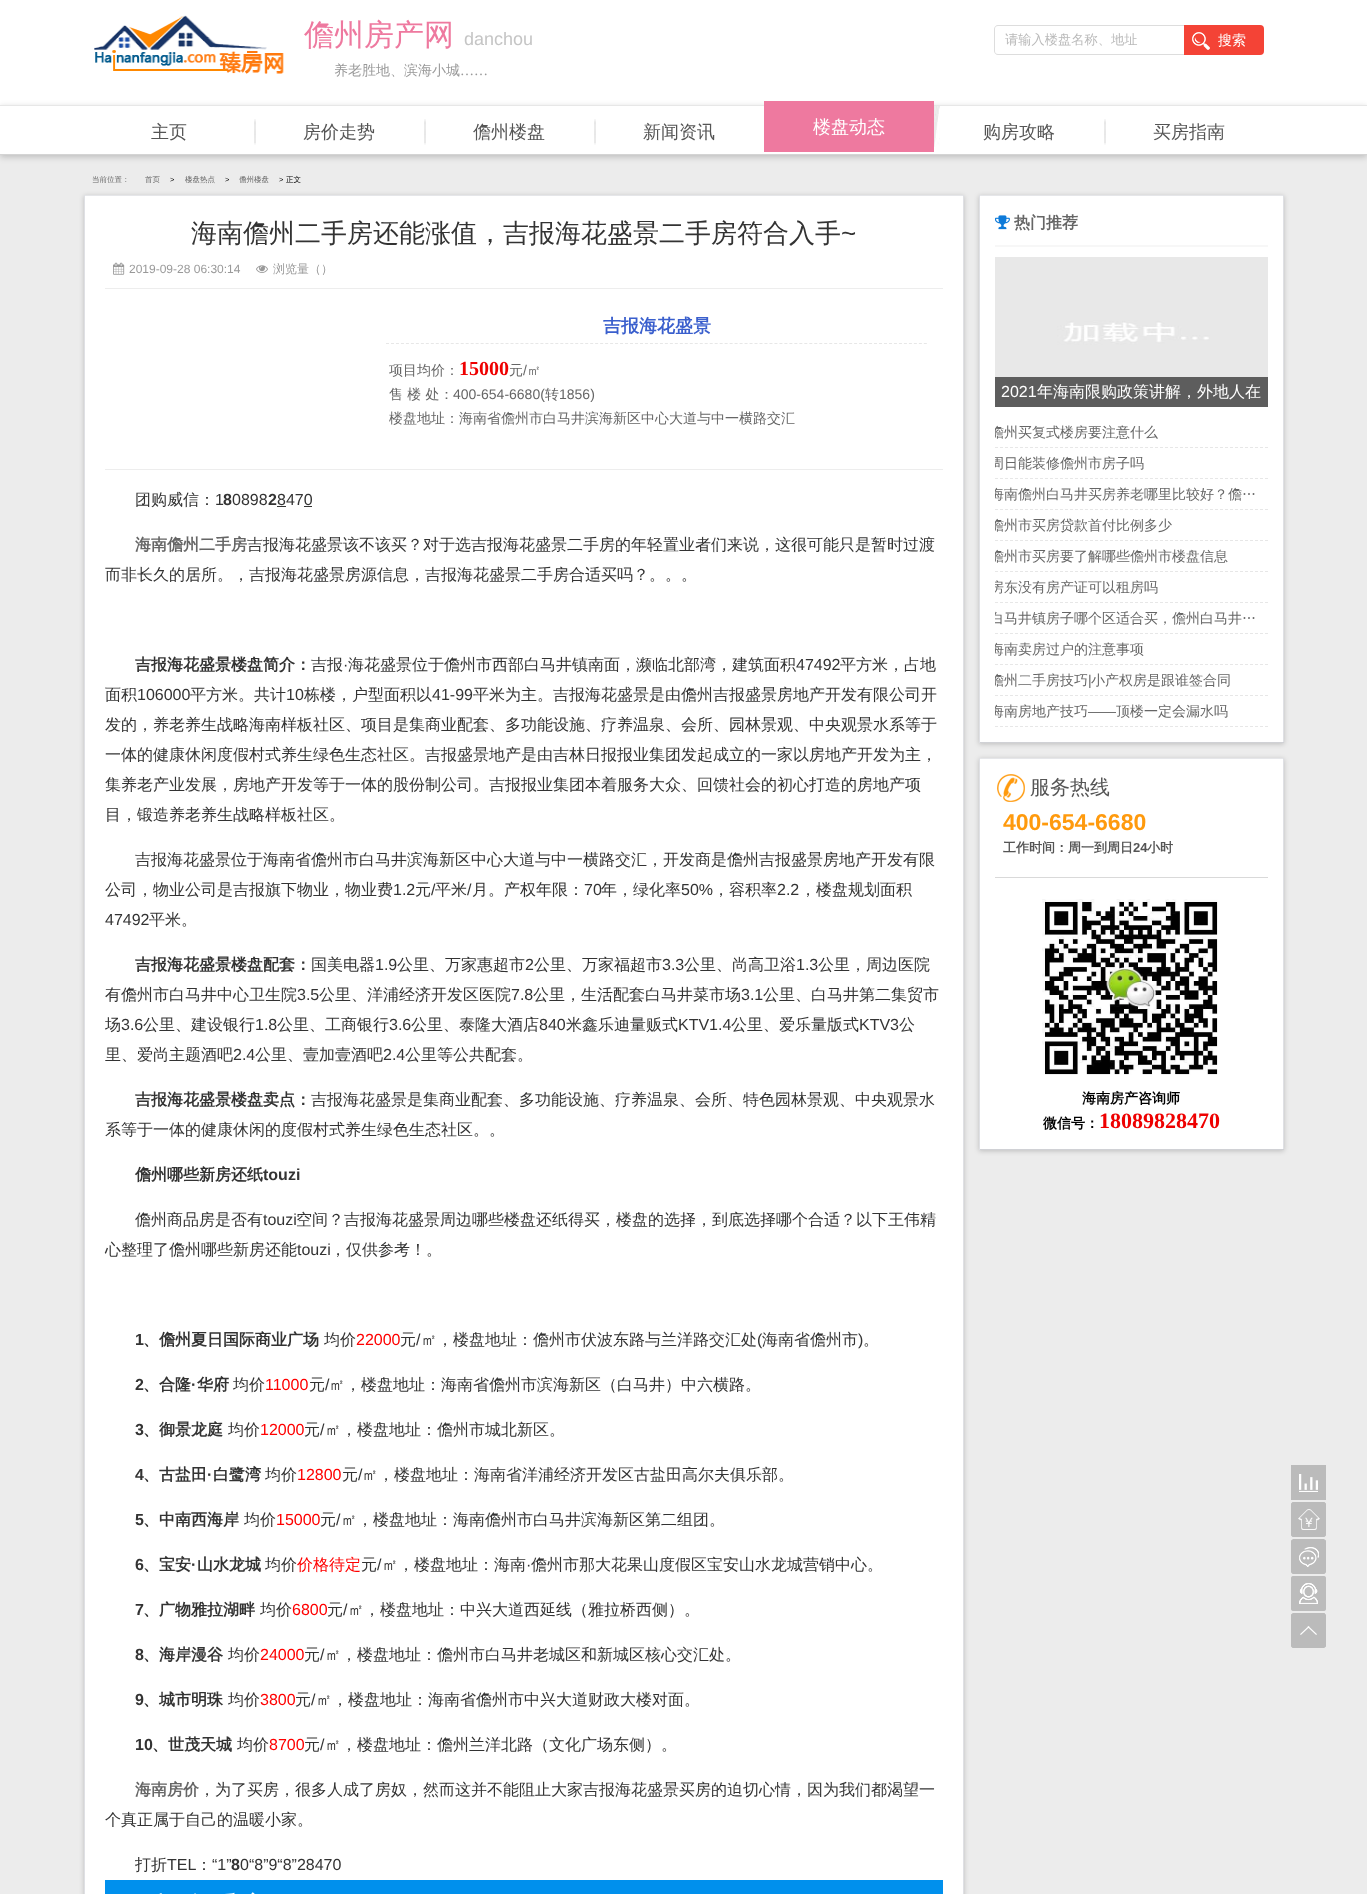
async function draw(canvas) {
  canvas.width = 1367;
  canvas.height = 1894;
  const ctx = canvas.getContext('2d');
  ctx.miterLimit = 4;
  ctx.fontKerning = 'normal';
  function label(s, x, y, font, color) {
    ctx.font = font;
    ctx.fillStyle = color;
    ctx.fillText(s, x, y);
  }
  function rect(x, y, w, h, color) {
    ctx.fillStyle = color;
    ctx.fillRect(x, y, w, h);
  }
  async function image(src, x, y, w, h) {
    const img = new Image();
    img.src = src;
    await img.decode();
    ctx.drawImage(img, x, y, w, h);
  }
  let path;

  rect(0, 0, 1367, 1894, '#ececec');
  rect(0, 0, 1367, 105, '#fff');
  await image('assets/img1.png', 94, 15, 190, 59);
  label('儋州房产网', 304, 45, '500 30px WenQuanYi Zen Hei', '#ee799f');
  label('danchou', 464, 45, '18px Liberation Sans', '#c5c5c5');
  label('养老胜地、滨海小城', 334, 75, '500 14px WenQuanYi Zen Hei', '#999');
  label('……', 460, 75, '14px Liberation Serif', '#999');
  ctx.fillStyle = '#ddd';
  path = new Path2D('M998 25H1184V55H998C996 55 994 53 994 51V29C994 27 996 25 998 25ZM998 26H1184V54H998C996 54 995 53 995 51V29C995 27 996 26 998 26Z');
  ctx.fill(path, 'evenodd');
  label('请输入楼盘名称、地址', 1005, 44, '500 13.25px WenQuanYi Zen Hei', '#bababa');
  ctx.fillStyle = '#f44336';
  ctx.beginPath();
  ctx.roundRect(1184, 25, 80, 30, [0, 4, 4, 0]);
  ctx.fill();
  await image('assets/img2.png', 1192, 32, 18, 18);
  label('搜索', 1218, 45, '500 14px WenQuanYi Zen Hei', '#fff');
  ctx.fillStyle = '#00000033';
  ctx.filter = 'blur(3px)';
  ctx.beginPath();
  ctx.rect(0, 107, 1367, 50);
  ctx.fill();
  ctx.filter = 'none';
  rect(0, 106, 1367, 48, '#fff');
  rect(0, 105, 1367, 1, '#e7e7e7');
  rect(0, 154, 1367, 1, '#d4d4d4');
  label('主页', 151, 138, '500 18px WenQuanYi Zen Hei', '#555');
  await image('assets/img3.png', 254, 119, 2, 26);
  label('房价走势', 303, 138, '500 18px WenQuanYi Zen Hei', '#555');
  await image('assets/img3.png', 424, 119, 2, 26);
  label('儋州楼盘', 473, 138, '500 18px WenQuanYi Zen Hei', '#555');
  await image('assets/img3.png', 594, 119, 2, 26);
  label('新闻资讯', 643, 138, '500 18px WenQuanYi Zen Hei', '#555');
  rect(764, 101, 170, 51, '#ee799f');
  label('楼盘动态', 813, 133, '500 18px WenQuanYi Zen Hei', '#fff');
  await image('assets/img4.png', 934, 106, 6, 41);
  label('购房攻略', 983, 138, '500 18px WenQuanYi Zen Hei', '#555');
  await image('assets/img3.png', 1104, 119, 2, 26);
  label('买房指南', 1153, 138, '500 18px WenQuanYi Zen Hei', '#555');
  label('当前位置：', 92, 182, '500 7.5px WenQuanYi Zen Hei', '#666');
  label('首页', 145, 182, '500 7.5px WenQuanYi Zen Hei', '#666');
  label('>', 170, 182, '7.5px Liberation Sans', '#000');
  label('楼盘热点', 185, 182, '500 7.5px WenQuanYi Zen Hei', '#666');
  label('>', 225, 182, '7.5px Liberation Sans', '#000');
  label('儋州楼盘', 239, 182, '500 7.5px WenQuanYi Zen Hei', '#666');
  label('>', 279, 182, '7.5px Liberation Sans', '#000');
  label('正文', 286, 182, '500 7.5px WenQuanYi Zen Hei', '#000');
  ctx.fillStyle = '#00000033';
  ctx.filter = 'blur(2.5px)';
  ctx.beginPath();
  ctx.rect(84, 196, 880, 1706);
  ctx.fill();
  ctx.filter = 'none';
  rect(85, 196, 878, 1698, '#fff');
  rect(84, 195, 880, 1, '#e5e6e9');
  rect(963, 195, 1, 1699, '#dfe0e4');
  rect(84, 195, 1, 1699, '#dfe0e4');
  label('海南儋州二手房还能涨值，吉报海花盛景二手房符合入手', 191, 242, '500 26px WenQuanYi Zen Hei', '#333');
  label('~', 841, 242, '26px Liberation Sans', '#333');
  rect(105, 288, 838, 1, '#ededed');
  await image('assets/img5.png', 113, 262, 12, 13);
  label('2019-09-28 06:30:14', 129, 273, '12px Liberation Sans', '#999');
  await image('assets/img6.png', 256, 265, 12, 8);
  label('浏览量（）', 273, 273, '500 12px WenQuanYi Zen Hei', '#999');
  rect(105, 469, 838, 1, '#ededed');
  path = new Path2D('M386 343.5H927');
  ctx.strokeStyle = '#e7e7e7';
  ctx.setLineDash([3, 1.98]);
  ctx.stroke(path);
  label('吉报海花盛景', 603, 332, 'bold 18px WenQuanYi Zen Hei', '#3a5fcd');
  label('项目均价：', 389, 375, '500 14px WenQuanYi Zen Hei', '#666');
  label('15000', 459, 375, 'bold 20px Liberation Serif', '#e00');
  label('元', 509, 375, '500 14px WenQuanYi Zen Hei', '#666');
  label('/', 523, 375, '14px Liberation Sans', '#666');
  label('㎡', 527, 375, '500 14px WenQuanYi Zen Hei', '#666');
  label('售 楼 处：', 389, 399, '500 14px WenQuanYi Zen Hei', '#666');
  label('400-654-6680(', 453, 399, '14px Liberation Sans', '#666');
  label('转', 545, 399, '500 14px WenQuanYi Zen Hei', '#666');
  label('1856)', 559, 399, '14px Liberation Sans', '#666');
  label('楼盘地址：海南省儋州市白马井滨海新区中心大道与中一横路交汇', 389, 423, '500 14px WenQuanYi Zen Hei', '#666');
  label('团购威信：', 135, 505, '500 16px WenQuanYi Zen Hei', '#333');
  label('1', 215, 505, '16px Liberation Sans', '#333');
  label('8', 223, 505, 'bold 16px Liberation Sans', '#333');
  label('0898', 232, 505, '16px Liberation Sans', '#333');
  label('2', 268, 505, 'bold 16px Liberation Sans', '#333');
  label('8470', 277, 505, '16px Liberation Sans', '#333');
  rect(277, 506, 9, 1, '#333');
  rect(304, 506, 8, 1, '#333');
  label('海南儋州二手房', 135, 550, 'bold 16px WenQuanYi Zen Hei', '#666');
  label('吉报海花盛景该不该买？对于选吉报海花盛景二手房的年轻置业者们来说，这很可能只是暂时过渡', 247, 550, '500 16px WenQuanYi Zen Hei', '#333');
  label('而非长久的居所。，吉报海花盛景房源信息，吉报海花盛景二手房合适买吗？。。。', 105, 580, '500 16px WenQuanYi Zen Hei', '#333');
  label('吉报海花盛景楼盘简介：', 135, 670, 'bold 16px WenQuanYi Zen Hei', '#333');
  label('吉报', 311, 670, '500 16px WenQuanYi Zen Hei', '#333');
  label('·', 343, 670, '16px Liberation Sans', '#333');
  label('海花盛景位于儋州市西部白马井镇南面，濒临北部湾，建筑面积', 348, 670, '500 16px WenQuanYi Zen Hei', '#333');
  label('47492', 796, 670, '16px Liberation Sans', '#333');
  label('平方米，占地', 840, 670, '500 16px WenQuanYi Zen Hei', '#333');
  label('面积', 105, 700, '500 16px WenQuanYi Zen Hei', '#333');
  label('106000', 137, 700, '16px Liberation Sans', '#333');
  label('平方米。共计', 190, 700, '500 16px WenQuanYi Zen Hei', '#333');
  label('10', 286, 700, '16px Liberation Sans', '#333');
  label('栋楼，户型面积以', 304, 700, '500 16px WenQuanYi Zen Hei', '#333');
  label('41-99', 432, 700, '16px Liberation Sans', '#333');
  label('平米为主。吉报海花盛景是由儋州吉报盛景房地产开发有限公司开', 473, 700, '500 16px WenQuanYi Zen Hei', '#333');
  label('发的，养老养生战略海南样板社区、项目是集商业配套、多功能设施、疗养温泉、会所、园林景观、中央观景水系等于', 105, 730, '500 16px WenQuanYi Zen Hei', '#333');
  label('一体的健康休闲度假村式养生绿色生态社区。吉报盛景地产是由吉林日报报业集团发起成立的一家以房地产开发为主，', 105, 760, '500 16px WenQuanYi Zen Hei', '#333');
  label('集养老产业发展，房地产开发等于一体的股份制公司。吉报报业集团本着服务大众、回馈社会的初心打造的房地产项', 105, 790, '500 16px WenQuanYi Zen Hei', '#333');
  label('目，锻造养老养生战略样板社区。', 105, 820, '500 16px WenQuanYi Zen Hei', '#333');
  label('吉报海花盛景位于海南省儋州市白马井滨海新区中心大道与中一横路交汇，开发商是儋州吉报盛景房地产开发有限', 135, 865, '500 16px WenQuanYi Zen Hei', '#333');
  label('公司，物业公司是吉报旗下物业，物业费', 105, 895, '500 16px WenQuanYi Zen Hei', '#333');
  label('1.2', 393, 895, '16px Liberation Sans', '#333');
  label('元', 415, 895, '500 16px WenQuanYi Zen Hei', '#333');
  label('/', 431, 895, '16px Liberation Sans', '#333');
  label('平米', 435, 895, '500 16px WenQuanYi Zen Hei', '#333');
  label('/', 467, 895, '16px Liberation Sans', '#333');
  label('月。产权年限：', 472, 895, '500 16px WenQuanYi Zen Hei', '#333');
  label('70', 584, 895, '16px Liberation Sans', '#333');
  label('年，绿化率', 601, 895, '500 16px WenQuanYi Zen Hei', '#333');
  label('50%', 681, 895, '16px Liberation Sans', '#333');
  label('，容积率', 713, 895, '500 16px WenQuanYi Zen Hei', '#333');
  label('2.2', 777, 895, '16px Liberation Sans', '#333');
  label('，楼盘规划面积', 800, 895, '500 16px WenQuanYi Zen Hei', '#333');
  label('47492', 105, 925, '16px Liberation Sans', '#333');
  label('平米。', 149, 925, '500 16px WenQuanYi Zen Hei', '#333');
  label('吉报海花盛景楼盘配套：', 135, 970, 'bold 16px WenQuanYi Zen Hei', '#333');
  label('国美电器', 311, 970, '500 16px WenQuanYi Zen Hei', '#333');
  label('1.9', 375, 970, '16px Liberation Sans', '#333');
  label('公里、万家惠超市', 397, 970, '500 16px WenQuanYi Zen Hei', '#333');
  label('2', 525, 970, '16px Liberation Sans', '#333');
  label('公里、万家福超市', 534, 970, '500 16px WenQuanYi Zen Hei', '#333');
  label('3.3', 662, 970, '16px Liberation Sans', '#333');
  label('公里、尚高卫浴', 684, 970, '500 16px WenQuanYi Zen Hei', '#333');
  label('1.3', 796, 970, '16px Liberation Sans', '#333');
  label('公里，周边医院', 818, 970, '500 16px WenQuanYi Zen Hei', '#333');
  label('有儋州市白马井中心卫生院', 105, 1000, '500 16px WenQuanYi Zen Hei', '#333');
  label('3.5', 297, 1000, '16px Liberation Sans', '#333');
  label('公里、洋浦经济开发区医院', 319, 1000, '500 16px WenQuanYi Zen Hei', '#333');
  label('7.8', 511, 1000, '16px Liberation Sans', '#333');
  label('公里，生活配套白马井菜市场', 533, 1000, '500 16px WenQuanYi Zen Hei', '#333');
  label('3.1', 741, 1000, '16px Liberation Sans', '#333');
  label('公里、白马井第二集贸市', 763, 1000, '500 16px WenQuanYi Zen Hei', '#333');
  label('场', 105, 1030, '500 16px WenQuanYi Zen Hei', '#333');
  label('3.6', 121, 1030, '16px Liberation Sans', '#333');
  label('公里、建设银行', 143, 1030, '500 16px WenQuanYi Zen Hei', '#333');
  label('1.8', 255, 1030, '16px Liberation Sans', '#333');
  label('公里、工商银行', 277, 1030, '500 16px WenQuanYi Zen Hei', '#333');
  label('3.6', 389, 1030, '16px Liberation Sans', '#333');
  label('公里、泰隆大酒店', 411, 1030, '500 16px WenQuanYi Zen Hei', '#333');
  label('840', 539, 1030, '16px Liberation Sans', '#333');
  label('米鑫乐迪量贩式', 566, 1030, '500 16px WenQuanYi Zen Hei', '#333');
  label('KTV1.4', 678, 1030, '16px Liberation Sans', '#333');
  label('公里、爱乐量版式', 731, 1030, '500 16px WenQuanYi Zen Hei', '#333');
  label('KTV3', 859, 1030, '16px Liberation Sans', '#333');
  label('公', 899, 1030, '500 16px WenQuanYi Zen Hei', '#333');
  label('里、爱尚主题酒吧', 105, 1060, '500 16px WenQuanYi Zen Hei', '#333');
  label('2.4', 233, 1060, '16px Liberation Sans', '#333');
  label('公里、壹加壹酒吧', 255, 1060, '500 16px WenQuanYi Zen Hei', '#333');
  label('2.4', 383, 1060, '16px Liberation Sans', '#333');
  label('公里等公共配套。', 405, 1060, '500 16px WenQuanYi Zen Hei', '#333');
  label('吉报海花盛景楼盘卖点：', 135, 1105, 'bold 16px WenQuanYi Zen Hei', '#333');
  label('吉报海花盛景是集商业配套、多功能设施、疗养温泉、会所、特色园林景观、中央观景水', 311, 1105, '500 16px WenQuanYi Zen Hei', '#333');
  label('系等于一体的健康休闲的度假村式养生绿色生态社区。。', 105, 1135, '500 16px WenQuanYi Zen Hei', '#333');
  label('儋州哪些新房还纸', 135, 1180, 'bold 16px WenQuanYi Zen Hei', '#333');
  label('touzi', 263, 1180, 'bold 16px Liberation Sans', '#333');
  label('儋州商品房是否有', 135, 1225, '500 16px WenQuanYi Zen Hei', '#333');
  label('touzi', 263, 1225, '16px Liberation Sans', '#333');
  label('空间？吉报海花盛景周边哪些楼盘还纸得买，楼盘的选择，到底选择哪个合适？以下王伟精', 296, 1225, '500 16px WenQuanYi Zen Hei', '#333');
  label('心整理了儋州哪些新房还能', 105, 1255, '500 16px WenQuanYi Zen Hei', '#333');
  label('touzi', 297, 1255, '16px Liberation Sans', '#333');
  label('，仅供参考！。', 330, 1255, '500 16px WenQuanYi Zen Hei', '#333');
  label('1', 135, 1345, 'bold 16px Liberation Sans', '#333');
  label('、儋州夏日国际商业广场', 143, 1345, 'bold 16px WenQuanYi Zen Hei', '#333');
  label('均价', 324, 1345, '500 16px WenQuanYi Zen Hei', '#333');
  label('22000', 356, 1345, '16px Liberation Sans', '#f00');
  label('元', 400, 1345, '500 16px WenQuanYi Zen Hei', '#333');
  label('/', 416, 1345, '16px Liberation Sans', '#333');
  label('㎡，楼盘地址：儋州市伏波东路与兰洋路交汇处', 421, 1345, '500 16px WenQuanYi Zen Hei', '#333');
  label('(', 757, 1345, '16px Liberation Sans', '#333');
  label('海南省儋州市', 762, 1345, '500 16px WenQuanYi Zen Hei', '#333');
  label(')', 858, 1345, '16px Liberation Sans', '#333');
  label('。', 863, 1345, '500 16px WenQuanYi Zen Hei', '#333');
  label('2', 135, 1390, 'bold 16px Liberation Sans', '#333');
  label('、合隆', 143, 1390, 'bold 16px WenQuanYi Zen Hei', '#333');
  label('·', 191, 1390, 'bold 16px Liberation Sans', '#333');
  label('华府', 197, 1390, 'bold 16px WenQuanYi Zen Hei', '#333');
  label('均价', 233, 1390, '500 16px WenQuanYi Zen Hei', '#333');
  label('11000', 265, 1390, '16px Liberation Sans', '#f00');
  label('元', 309, 1390, '500 16px WenQuanYi Zen Hei', '#333');
  label('/', 325, 1390, '16px Liberation Sans', '#333');
  label('㎡，楼盘地址：海南省儋州市滨海新区（白马井）中六横路。', 329, 1390, '500 16px WenQuanYi Zen Hei', '#333');
  label('3', 135, 1435, 'bold 16px Liberation Sans', '#333');
  label('、御景龙庭', 143, 1435, 'bold 16px WenQuanYi Zen Hei', '#333');
  label('均价', 228, 1435, '500 16px WenQuanYi Zen Hei', '#333');
  label('12000', 260, 1435, '16px Liberation Sans', '#f00');
  label('元', 304, 1435, '500 16px WenQuanYi Zen Hei', '#333');
  label('/', 320, 1435, '16px Liberation Sans', '#333');
  label('㎡，楼盘地址：儋州市城北新区。', 325, 1435, '500 16px WenQuanYi Zen Hei', '#333');
  label('4', 135, 1480, 'bold 16px Liberation Sans', '#333');
  label('、古盐田', 143, 1480, 'bold 16px WenQuanYi Zen Hei', '#333');
  label('·', 207, 1480, 'bold 16px Liberation Sans', '#333');
  label('白鹭湾', 213, 1480, 'bold 16px WenQuanYi Zen Hei', '#333');
  label('均价', 265, 1480, '500 16px WenQuanYi Zen Hei', '#333');
  label('12800', 297, 1480, '16px Liberation Sans', '#f00');
  label('元', 342, 1480, '500 16px WenQuanYi Zen Hei', '#333');
  label('/', 358, 1480, '16px Liberation Sans', '#333');
  label('㎡，楼盘地址：海南省洋浦经济开发区古盐田高尔夫俱乐部。', 362, 1480, '500 16px WenQuanYi Zen Hei', '#333');
  label('5', 135, 1525, 'bold 16px Liberation Sans', '#333');
  label('、中南西海岸', 143, 1525, 'bold 16px WenQuanYi Zen Hei', '#333');
  label('均价', 244, 1525, '500 16px WenQuanYi Zen Hei', '#333');
  label('15000', 276, 1525, '16px Liberation Sans', '#f00');
  label('元', 320, 1525, '500 16px WenQuanYi Zen Hei', '#333');
  label('/', 336, 1525, '16px Liberation Sans', '#333');
  label('㎡，楼盘地址：海南儋州市白马井滨海新区第二组团。', 341, 1525, '500 16px WenQuanYi Zen Hei', '#333');
  label('6', 135, 1570, 'bold 16px Liberation Sans', '#333');
  label('、宝安', 143, 1570, 'bold 16px WenQuanYi Zen Hei', '#333');
  label('·', 191, 1570, 'bold 16px Liberation Sans', '#333');
  label('山水龙城', 197, 1570, 'bold 16px WenQuanYi Zen Hei', '#333');
  label('均价', 265, 1570, '500 16px WenQuanYi Zen Hei', '#333');
  label('价格待定', 297, 1570, '500 16px WenQuanYi Zen Hei', '#f00');
  label('元', 361, 1570, '500 16px WenQuanYi Zen Hei', '#333');
  label('/', 377, 1570, '16px Liberation Sans', '#333');
  label('㎡，楼盘地址：海南', 382, 1570, '500 16px WenQuanYi Zen Hei', '#333');
  label('·', 526, 1570, '16px Liberation Sans', '#333');
  label('儋州市那大花果山度假区宝安山水龙城营销中心。', 531, 1570, '500 16px WenQuanYi Zen Hei', '#333');
  label('7', 135, 1615, 'bold 16px Liberation Sans', '#333');
  label('、广物雅拉湖畔', 143, 1615, 'bold 16px WenQuanYi Zen Hei', '#333');
  label('均价', 260, 1615, '500 16px WenQuanYi Zen Hei', '#333');
  label('6800', 292, 1615, '16px Liberation Sans', '#f00');
  label('元', 327, 1615, '500 16px WenQuanYi Zen Hei', '#333');
  label('/', 343, 1615, '16px Liberation Sans', '#333');
  label('㎡，楼盘地址：中兴大道西延线（雅拉桥西侧）。', 348, 1615, '500 16px WenQuanYi Zen Hei', '#333');
  label('8', 135, 1660, 'bold 16px Liberation Sans', '#333');
  label('、海岸漫谷', 143, 1660, 'bold 16px WenQuanYi Zen Hei', '#333');
  label('均价', 228, 1660, '500 16px WenQuanYi Zen Hei', '#333');
  label('24000', 260, 1660, '16px Liberation Sans', '#f00');
  label('元', 304, 1660, '500 16px WenQuanYi Zen Hei', '#333');
  label('/', 320, 1660, '16px Liberation Sans', '#333');
  label('㎡，楼盘地址：儋州市白马井老城区和新城区核心交汇处。', 325, 1660, '500 16px WenQuanYi Zen Hei', '#333');
  label('9', 135, 1705, 'bold 16px Liberation Sans', '#333');
  label('、城市明珠', 143, 1705, 'bold 16px WenQuanYi Zen Hei', '#333');
  label('均价', 228, 1705, '500 16px WenQuanYi Zen Hei', '#333');
  label('3800', 260, 1705, '16px Liberation Sans', '#f00');
  label('元', 295, 1705, '500 16px WenQuanYi Zen Hei', '#333');
  label('/', 311, 1705, '16px Liberation Sans', '#333');
  label('㎡，楼盘地址：海南省儋州市中兴大道财政大楼对面。', 316, 1705, '500 16px WenQuanYi Zen Hei', '#333');
  label('10', 135, 1750, 'bold 16px Liberation Sans', '#333');
  label('、世茂天城', 152, 1750, 'bold 16px WenQuanYi Zen Hei', '#333');
  label('均价', 237, 1750, '500 16px WenQuanYi Zen Hei', '#333');
  label('8700', 269, 1750, '16px Liberation Sans', '#f00');
  label('元', 304, 1750, '500 16px WenQuanYi Zen Hei', '#333');
  label('/', 320, 1750, '16px Liberation Sans', '#333');
  label('㎡，楼盘地址：儋州兰洋北路（文化广场东侧）。', 325, 1750, '500 16px WenQuanYi Zen Hei', '#333');
  label('海南房价', 135, 1795, 'bold 16px WenQuanYi Zen Hei', '#666');
  label('，为了买房，很多人成了房奴，然而这并不能阻止大家吉报海花盛景买房的迫切心情，因为我们都渴望一', 199, 1795, '500 16px WenQuanYi Zen Hei', '#333');
  label('个真正属于自己的温暖小家。', 105, 1825, '500 16px WenQuanYi Zen Hei', '#333');
  label('打折', 135, 1870, '500 16px WenQuanYi Zen Hei', '#333');
  label('TEL', 167, 1870, '16px Liberation Sans', '#333');
  label('：', 196, 1870, '500 16px WenQuanYi Zen Hei', '#333');
  label('“1”', 212, 1870, '16px Liberation Sans', '#333');
  label('8', 231, 1870, 'bold 16px Liberation Sans', '#333');
  label('0“8”9“8”28470', 240, 1870, '16px Liberation Sans', '#333');
  await image('assets/img7.png', 105, 1880, 838, 14);
  ctx.fillStyle = '#00000033';
  ctx.filter = 'blur(2.5px)';
  ctx.beginPath();
  ctx.rect(979, 196, 305, 548);
  ctx.fill();
  ctx.filter = 'none';
  rect(980, 196, 303, 546, '#fff');
  rect(979, 195, 305, 1, '#e5e6e9');
  rect(1283, 195, 1, 548, '#dfe0e4');
  rect(979, 742, 305, 1, '#d0d1d5');
  rect(979, 195, 1, 548, '#dfe0e4');
  rect(995, 245, 273, 2, '#f7f7f7');
  await image('assets/img8.png', 995, 215, 15, 15);
  label('热门推荐', 1014, 228, 'bold 16px WenQuanYi Zen Hei', '#666');
  await image('assets/img9.png', 995, 257, 273, 120);
  rect(995, 377, 273, 30, '#5d5d5d');
  label('2021', 1001, 397, '16px Liberation Sans', '#fff');
  label('年海南限购政策讲解，外地人在', 1037, 397, '500 16px WenQuanYi Zen Hei', '#fff');
  path = new Path2D('M995 447.5H1268');
  ctx.setLineDash([3, 2]);
  ctx.stroke(path);
  ctx.save();
  ctx.beginPath();
  ctx.rect(995, 417, 273, 30);
  ctx.clip();
  label('儋州买复式楼房要注意什么', 990, 437, '500 14px WenQuanYi Zen Hei', '#666');
  ctx.restore();
  path = new Path2D('M995 478.5H1268');
  ctx.stroke(path);
  ctx.save();
  ctx.beginPath();
  ctx.rect(995, 448, 273, 30);
  ctx.clip();
  label('周日能装修儋州市房子吗', 990, 468, '500 14px WenQuanYi Zen Hei', '#666');
  ctx.restore();
  path = new Path2D('M995 509.5H1268');
  ctx.stroke(path);
  ctx.save();
  ctx.beginPath();
  ctx.rect(995, 479, 273, 30);
  ctx.clip();
  label('海南儋州白马井买房养老哪里比较好？儋…', 990, 499, '500 14px WenQuanYi Zen Hei', '#666');
  ctx.restore();
  path = new Path2D('M995 540.5H1268');
  ctx.stroke(path);
  ctx.save();
  ctx.beginPath();
  ctx.rect(995, 510, 273, 30);
  ctx.clip();
  label('儋州市买房贷款首付比例多少', 990, 530, '500 14px WenQuanYi Zen Hei', '#666');
  ctx.restore();
  path = new Path2D('M995 571.5H1268');
  ctx.stroke(path);
  ctx.save();
  ctx.beginPath();
  ctx.rect(995, 541, 273, 30);
  ctx.clip();
  label('儋州市买房要了解哪些儋州市楼盘信息', 990, 561, '500 14px WenQuanYi Zen Hei', '#666');
  ctx.restore();
  path = new Path2D('M995 602.5H1268');
  ctx.stroke(path);
  ctx.save();
  ctx.beginPath();
  ctx.rect(995, 572, 273, 30);
  ctx.clip();
  label('房东没有房产证可以租房吗', 990, 592, '500 14px WenQuanYi Zen Hei', '#666');
  ctx.restore();
  path = new Path2D('M995 633.5H1268');
  ctx.stroke(path);
  ctx.save();
  ctx.beginPath();
  ctx.rect(995, 603, 273, 30);
  ctx.clip();
  label('白马井镇房子哪个区适合买，儋州白马井…', 990, 623, '500 14px WenQuanYi Zen Hei', '#666');
  ctx.restore();
  path = new Path2D('M995 664.5H1268');
  ctx.stroke(path);
  ctx.save();
  ctx.beginPath();
  ctx.rect(995, 634, 273, 30);
  ctx.clip();
  label('海南卖房过户的注意事项', 990, 654, '500 14px WenQuanYi Zen Hei', '#666');
  ctx.restore();
  path = new Path2D('M995 695.5H1268');
  ctx.stroke(path);
  ctx.save();
  ctx.beginPath();
  ctx.rect(995, 665, 273, 30);
  ctx.clip();
  label('儋州二手房技巧', 990, 685, '500 14px WenQuanYi Zen Hei', '#666');
  ctx.restore();
  label('|', 1088, 685, '14px Liberation Sans', '#666');
  label('小产权房是跟谁签合同', 1091, 685, '500 14px WenQuanYi Zen Hei', '#666');
  path = new Path2D('M995 726.5H1268');
  ctx.stroke(path);
  ctx.save();
  ctx.beginPath();
  ctx.rect(995, 696, 273, 30);
  ctx.clip();
  label('海南房地产技巧', 990, 716, '500 14px WenQuanYi Zen Hei', '#666');
  ctx.restore();
  label('——', 1088, 716, '14px Liberation Sans', '#666');
  label('顶楼一定会漏水吗', 1116, 716, '500 14px WenQuanYi Zen Hei', '#666');
  ctx.fillStyle = '#00000033';
  ctx.filter = 'blur(2.5px)';
  ctx.beginPath();
  ctx.rect(979, 759, 305, 392);
  ctx.fill();
  ctx.filter = 'none';
  rect(980, 759, 303, 390, '#fff');
  rect(979, 758, 305, 1, '#e5e6e9');
  rect(1283, 758, 1, 392, '#dfe0e4');
  rect(979, 1149, 305, 1, '#d0d1d5');
  rect(979, 758, 1, 392, '#dfe0e4');
  await image('assets/img10.png', 997, 774, 28, 28);
  label('服务热线', 1030, 794, '500 20px WenQuanYi Zen Hei', '#555');
  label('400-654-6680', 1003, 830, 'bold 23px Liberation Sans', '#ff9a0d');
  label('工作时间：周一到周日', 1003, 852, 'bold 13px WenQuanYi Zen Hei', '#555');
  label('24', 1133, 852, 'bold 13px Liberation Sans', '#555');
  label('小时', 1147, 852, 'bold 13px WenQuanYi Zen Hei', '#555');
  rect(995, 877, 273, 1, '#d9d9d9');
  await image('assets/img11.png', 1042, 899, 176, 176);
  label('海南房产咨询师', 1082, 1103, 'bold 14px WenQuanYi Zen Hei', '#000');
  label('微信号：', 1043, 1128, 'bold 14px WenQuanYi Zen Hei', '#000');
  label('18089828470', 1099, 1128, 'bold 22px Liberation Serif', '#e00');
  rect(1291, 1465, 35, 35, '#bbb');
  await image('assets/img12.png', 1299, 1474, 19, 18);
  await image('assets/img13.png', 1291, 1502, 35, 35);
  await image('assets/img14.png', 1291, 1539, 35, 35);
  await image('assets/img15.png', 1291, 1576, 35, 35);
  await image('assets/img16.png', 1291, 1613, 35, 35);
}

draw(document.querySelector('canvas'));
